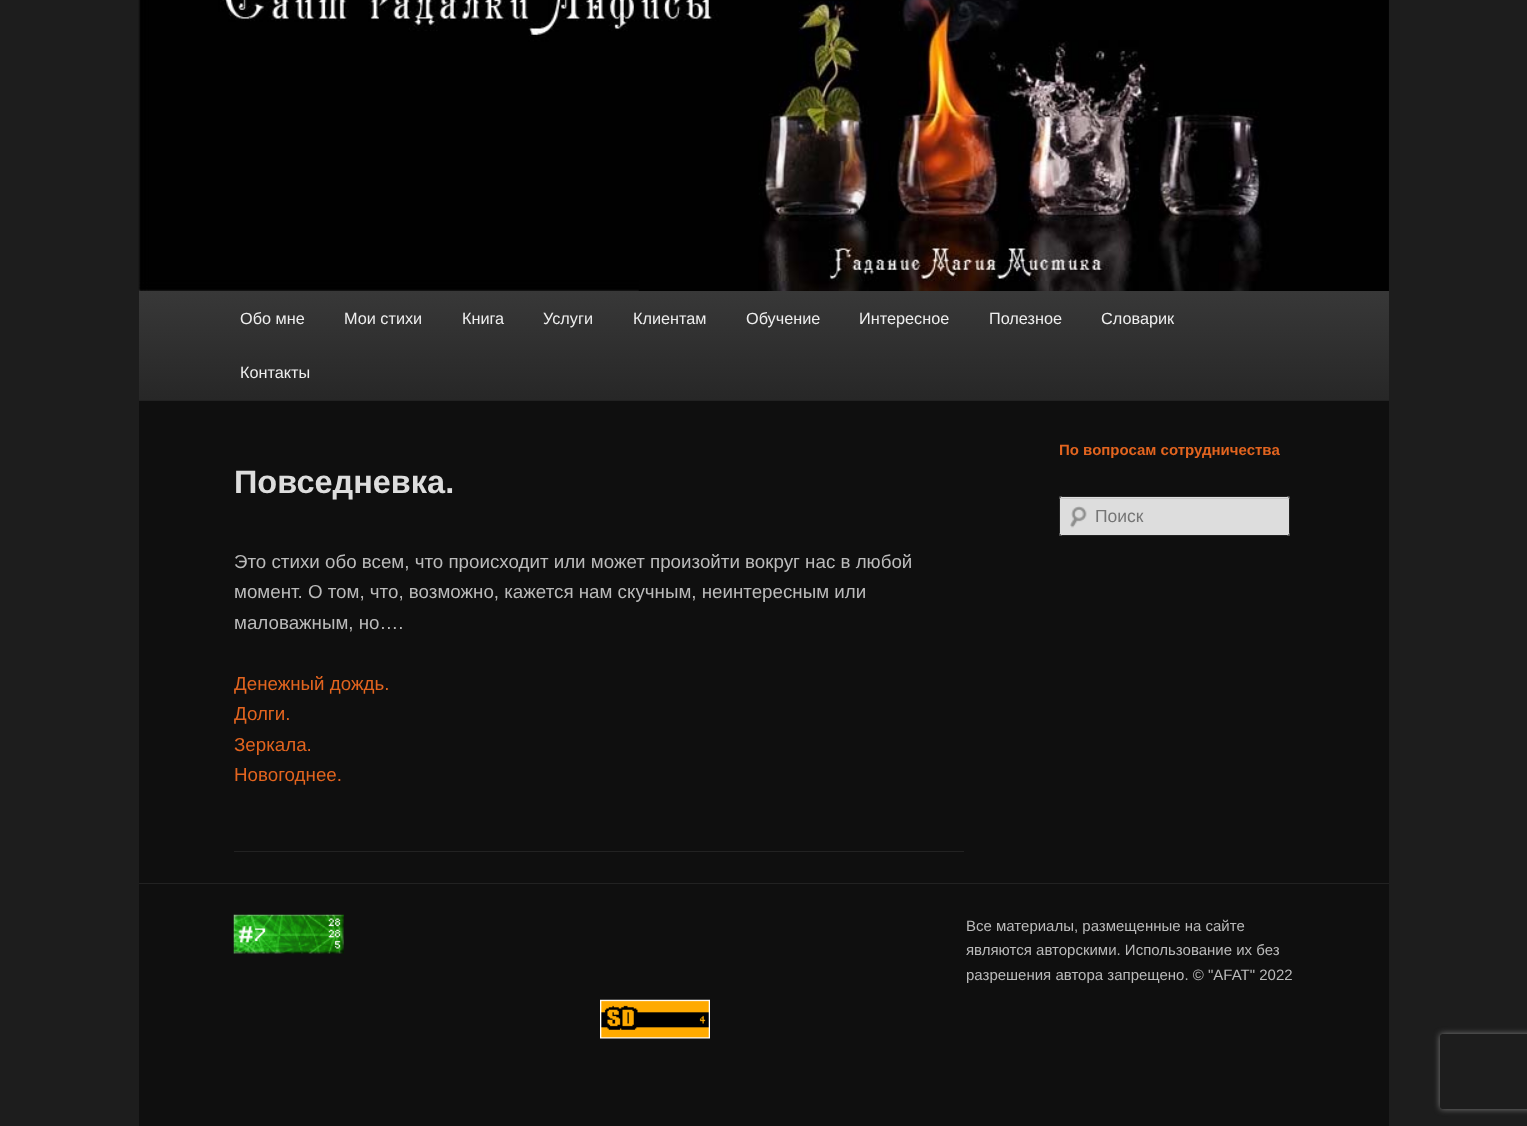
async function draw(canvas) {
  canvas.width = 1527;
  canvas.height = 1126;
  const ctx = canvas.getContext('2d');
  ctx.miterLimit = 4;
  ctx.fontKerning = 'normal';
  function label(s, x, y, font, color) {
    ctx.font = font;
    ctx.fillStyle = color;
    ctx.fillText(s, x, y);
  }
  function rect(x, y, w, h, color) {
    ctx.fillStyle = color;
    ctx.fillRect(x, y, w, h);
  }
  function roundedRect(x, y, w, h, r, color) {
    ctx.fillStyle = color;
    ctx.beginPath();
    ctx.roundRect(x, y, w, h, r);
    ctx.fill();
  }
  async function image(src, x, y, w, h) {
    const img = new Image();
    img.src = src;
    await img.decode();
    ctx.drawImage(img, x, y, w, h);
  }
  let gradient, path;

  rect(0, 0, 1527, 1126, '#1d1d1d');
  rect(139, 0, 1250, 1126, '#0f0f0f');
  await image('assets/img1.png', 138, 0, 1251, 291);
  gradient = ctx.createLinearGradient(764, 291, 764, 400);
  gradient.addColorStop(0, '#383838');
  gradient.addColorStop(1, '#272727');
  ctx.fillStyle = gradient;
  ctx.fillRect(139, 291, 1250, 109);
  rect(139, 400, 1250, 1, '#222');
  label('Обо мне', 240, 324, '16.25px Liberation Sans', '#eee');
  label('Мои стихи', 344, 324, '16.25px Liberation Sans', '#eee');
  label('Книга', 462, 324, '16.25px Liberation Sans', '#eee');
  label('Услуги', 543, 324, '16.25px Liberation Sans', '#eee');
  label('Клиентам', 633, 324, '16.25px Liberation Sans', '#eee');
  label('Обучение', 746, 324, '16.25px Liberation Sans', '#eee');
  label('Интересное', 859, 324, '16.25px Liberation Sans', '#eee');
  label('Полезное', 989, 324, '16.25px Liberation Sans', '#eee');
  label('Словарик', 1101, 324, '16.25px Liberation Sans', '#eee');
  label('Контакты', 240, 378, '16.25px Liberation Sans', '#eee');
  rect(234, 851, 730, 1, '#222');
  label('Повседневка.', 234, 493, 'bold 32.5px Liberation Sans', '#ddd');
  label('Это стихи обо всем, что происходит или может произойти вокруг нас в любой', 234, 568, '18.75px Liberation Sans', '#bbb');
  label('момент. О том, что, возможно, кажется нам скучным, неинтересным или', 234, 598, '18.75px Liberation Sans', '#bbb');
  label('маловажным, но….', 234, 629, '18.75px Liberation Sans', '#bbb');
  label('Денежный дождь.', 234, 690, '18.75px Liberation Sans', '#e2641f');
  label('Долги.', 234, 720, '18.75px Liberation Sans', '#e2641f');
  label('Зеркала.', 234, 751, '18.75px Liberation Sans', '#e2641f');
  label('Новогоднее.', 234, 781, '18.75px Liberation Sans', '#e2641f');
  label('По вопросам сотрудничества', 1059, 455, 'bold 15px Liberation Sans', '#e2641f');
  roundedRect(1059, 496, 231, 40, 2.5, '#ddd');
  await image('assets/img2.png', 1070, 506, 17, 22);
  ctx.fillStyle = '#c7c7c7';
  path = new Path2D('M1061 499H1288L1289 500V498H1061C1060 498 1060 499 1060 500Z');
  ctx.fill(path);
  ctx.beginPath();
  ctx.roundRect(1059.5, 496.5, 230, 39, 2);
  ctx.strokeStyle = '#222';
  ctx.stroke();
  label('Поиск', 1095, 522, '17.5px Liberation Sans', '#757575');
  rect(139, 883, 1250, 1, '#222');
  await image('assets/img3.png', 233, 914, 111, 40);
  label('Все материалы, размещенные на сайте', 966, 931, '15px Liberation Sans', '#bbb');
  label('являются авторскими. Использование их без', 966, 955, '15px Liberation Sans', '#bbb');
  label('разрешения автора запрещено. © "AFAT" 2022', 966, 980, '15px Liberation Sans', '#bbb');
  await image('assets/img4.png', 600, 999, 110, 40);
  ctx.save();
  path = new Path2D('M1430 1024H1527V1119H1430ZM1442.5 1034H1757.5C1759 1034 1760 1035 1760 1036.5V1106.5C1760 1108 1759 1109 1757.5 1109H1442.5C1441 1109 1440 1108 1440 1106.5V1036.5C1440 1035 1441 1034 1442.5 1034Z');
  ctx.clip(path, 'evenodd');
  ctx.fillStyle = '#808080';
  ctx.filter = 'blur(3px)';
  ctx.beginPath();
  ctx.roundRect(1440, 1034, 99, 75, 2.5);
  ctx.fill();
  ctx.filter = 'none';
  ctx.restore();
}

draw(document.querySelector('canvas'));
